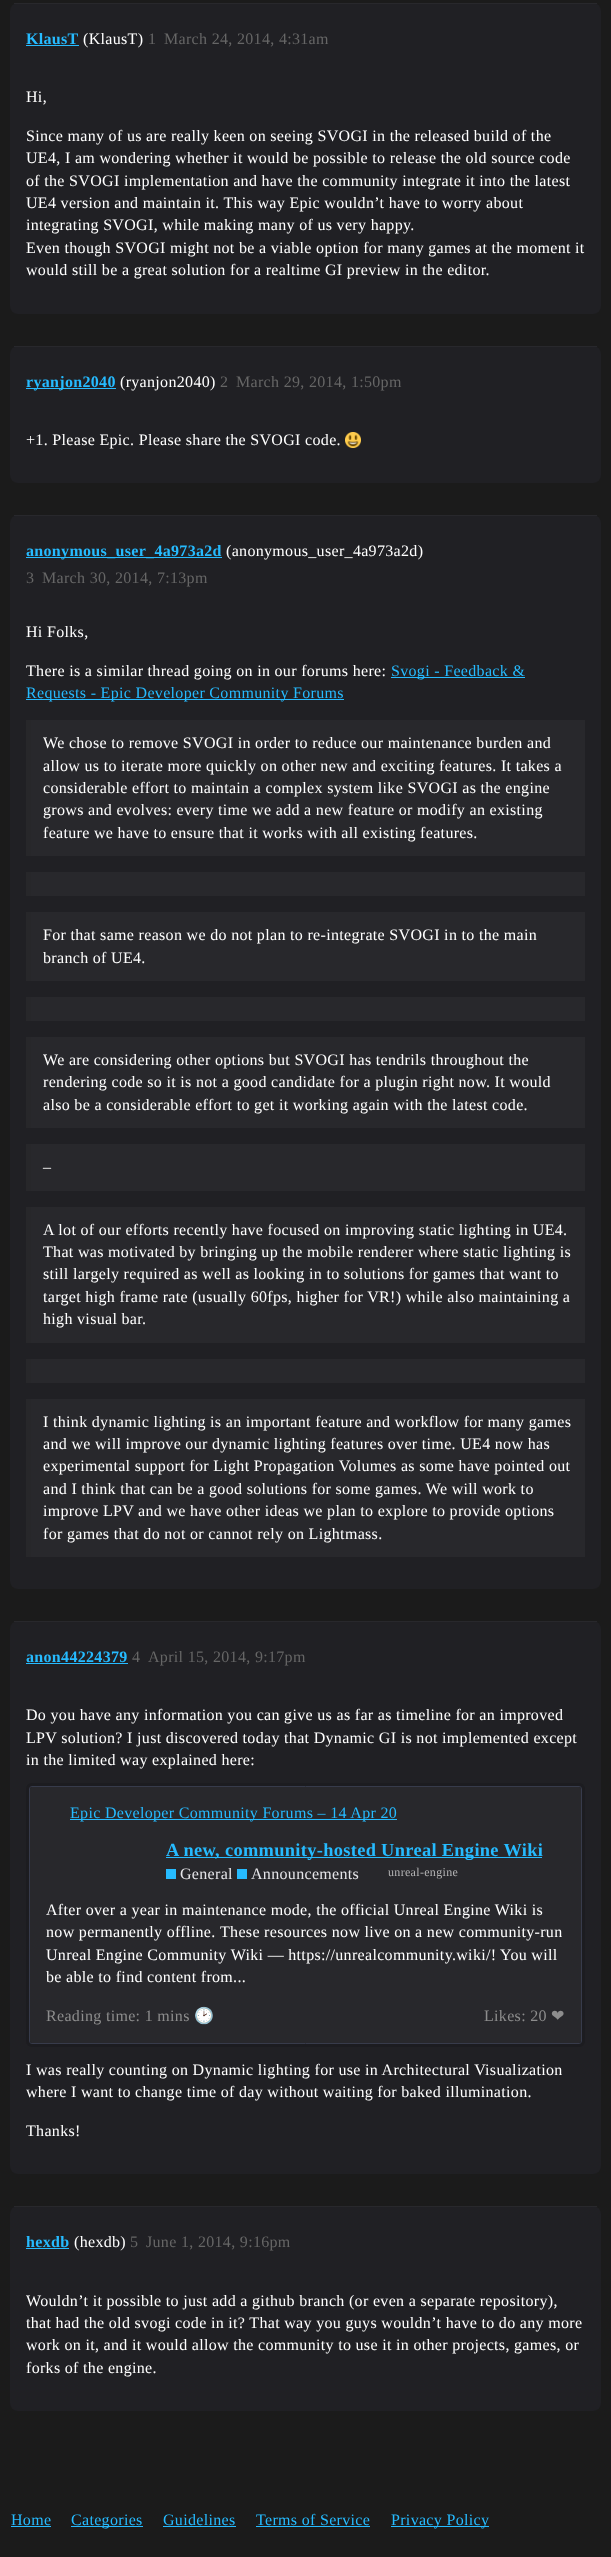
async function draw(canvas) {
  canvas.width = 611;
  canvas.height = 2557;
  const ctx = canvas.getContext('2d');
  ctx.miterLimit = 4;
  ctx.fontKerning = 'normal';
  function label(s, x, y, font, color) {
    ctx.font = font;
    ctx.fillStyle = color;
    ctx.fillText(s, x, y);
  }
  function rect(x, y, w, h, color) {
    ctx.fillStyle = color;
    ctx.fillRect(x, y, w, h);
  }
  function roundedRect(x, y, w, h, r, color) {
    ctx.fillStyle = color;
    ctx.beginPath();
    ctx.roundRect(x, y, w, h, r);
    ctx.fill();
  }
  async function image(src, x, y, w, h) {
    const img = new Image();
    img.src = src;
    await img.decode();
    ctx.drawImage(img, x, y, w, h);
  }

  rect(0, 0, 611, 2557, '#1b1b1b');
  roundedRect(10, 3, 591, 311, 8, '#202024');
  rect(14, 3, 583, 1, '#28282c');
  ctx.letterSpacing = '0.32px';
  label('KlausT', 26, 44, 'bold 16px Liberation Serif', '#26bbff');
  rect(26, 45, 53, 1, '#26bbff');
  label('(KlausT)', 83, 44, '16px Liberation Serif', '#fff');
  label('1', 148, 44, '16px Liberation Serif', '#666');
  label('March 24, 2014, 4:31am', 164, 44, '16px Liberation Serif', '#666');
  label('Hi,', 26, 102, '16px Liberation Serif', '#fff');
  label('Since many of us are really keen on seeing SVOGI in the released build of the', 26, 141, '16px Liberation Serif', '#fff');
  label('UE4, I am wondering whether it would be possible to release the old source code', 26, 163, '16px Liberation Serif', '#fff');
  label('of the SVOGI implementation and have the community integrate it into the latest', 26, 186, '16px Liberation Serif', '#fff');
  label('UE4 version and maintain it. This way Epic wouldn’t have to worry about', 26, 208, '16px Liberation Serif', '#fff');
  label('integrating SVOGI, while making many of us very happy.', 26, 230, '16px Liberation Serif', '#fff');
  label('Even though SVOGI might not be a viable option for many games at the moment it', 26, 253, '16px Liberation Serif', '#fff');
  label('would still be a great solution for a realtime GI preview in the editor.', 26, 275, '16px Liberation Serif', '#fff');
  roundedRect(10, 346, 591, 137, 8, '#202024');
  rect(14, 346, 583, 1, '#28282c');
  rect(26, 388, 90, 1, '#26bbff');
  label('ryanjon2040', 26, 387, 'bold 16px Liberation Serif', '#26bbff');
  label('(ryanjon2040)', 120, 387, '16px Liberation Serif', '#fff');
  label('2', 220, 387, '16px Liberation Serif', '#666');
  label('March 29, 2014, 1:50pm', 236, 387, '16px Liberation Serif', '#666');
  label('+1. Please Epic. Please share the SVOGI code.', 26, 445, '16px Liberation Serif', '#fff');
  await image('assets/img1.png', 345, 432, 16, 16);
  roundedRect(10, 515, 591, 1074, 8, '#202024');
  rect(14, 515, 583, 1, '#28282c');
  rect(26, 557, 196, 1, '#26bbff');
  label('anonymous_user_4a973a2d', 26, 556, 'bold 16px Liberation Serif', '#26bbff');
  label('(anonymous_user_4a973a2d)', 226, 556, '16px Liberation Serif', '#fff');
  label('3', 26, 583, '16px Liberation Serif', '#666');
  label('March 30, 2014, 7:13pm', 42, 583, '16px Liberation Serif', '#666');
  label('Hi Folks,', 26, 637, '16px Liberation Serif', '#fff');
  label('There is a similar thread going on in our forums here:', 26, 676, '16px Liberation Serif', '#fff');
  rect(391, 677, 134, 1, '#26bbff');
  label('Svogi - Feedback &', 391, 676, '16px Liberation Serif', '#26bbff');
  rect(26, 699, 318, 1, '#26bbff');
  label('Requests - Epic Developer Community Forums', 26, 698, '16px Liberation Serif', '#26bbff');
  rect(31, 720, 554, 136, '#28282c');
  rect(26, 720, 5, 136, '#27272a');
  label('We chose to remove SVOGI in order to reduce our maintenance burden and', 43, 748, '16px Liberation Serif', '#fff');
  label('allow us to iterate more quickly on other new and exciting features. It takes a', 43, 771, '16px Liberation Serif', '#fff');
  label('considerable effort to maintain a complex system like SVOGI as the engine', 43, 793, '16px Liberation Serif', '#fff');
  label('grows and evolves: every time we add a new feature or modify an existing', 43, 815, '16px Liberation Serif', '#fff');
  label('feature we have to ensure that it works with all existing features.', 43, 838, '16px Liberation Serif', '#fff');
  rect(31, 872, 554, 24, '#28282c');
  rect(26, 872, 5, 24, '#27272a');
  rect(31, 912, 554, 69, '#28282c');
  rect(26, 912, 5, 69, '#27272a');
  label('For that same reason we do not plan to re-integrate SVOGI in to the main', 43, 940, '16px Liberation Serif', '#fff');
  label('branch of UE4.', 43, 963, '16px Liberation Serif', '#fff');
  rect(31, 997, 554, 24, '#28282c');
  rect(26, 997, 5, 24, '#27272a');
  rect(31, 1037, 554, 91, '#28282c');
  rect(26, 1037, 5, 91, '#27272a');
  label('We are considering other options but SVOGI has tendrils throughout the', 43, 1065, '16px Liberation Serif', '#fff');
  label('rendering code so it is not a good candidate for a plugin right now. It would', 43, 1087, '16px Liberation Serif', '#fff');
  label('also be a considerable effort to get it working again with the latest code.', 43, 1110, '16px Liberation Serif', '#fff');
  rect(31, 1144, 554, 47, '#28282c');
  rect(26, 1144, 5, 47, '#27272a');
  label('–', 43, 1172, '16px Liberation Serif', '#fff');
  rect(31, 1207, 554, 136, '#28282c');
  rect(26, 1207, 5, 136, '#27272a');
  label('A lot of our efforts recently have focused on improving static lighting in UE4.', 43, 1235, '16px Liberation Serif', '#fff');
  label('That was motivated by bringing up the mobile renderer where static lighting is', 43, 1257, '16px Liberation Serif', '#fff');
  label('still largely required as well as looking in to solutions for games that want to', 43, 1279, '16px Liberation Serif', '#fff');
  label('target high frame rate (usually 60fps, higher for VR!) while also maintaining a', 43, 1302, '16px Liberation Serif', '#fff');
  label('high visual bar.', 43, 1324, '16px Liberation Serif', '#fff');
  rect(31, 1359, 554, 24, '#28282c');
  rect(26, 1359, 5, 24, '#27272a');
  rect(31, 1399, 554, 158, '#28282c');
  rect(26, 1399, 5, 158, '#27272a');
  label('I think dynamic lighting is an important feature and workflow for many games', 43, 1427, '16px Liberation Serif', '#fff');
  label('and we will improve our dynamic lighting features over time. UE4 now has', 43, 1449, '16px Liberation Serif', '#fff');
  label('experimental support for Light Propagation Volumes as some have pointed out', 43, 1471, '16px Liberation Serif', '#fff');
  label('and I think that can be a good solutions for some games. We will work to', 43, 1494, '16px Liberation Serif', '#fff');
  label('improve LPV and we have other ideas we plan to explore to provide options', 43, 1516, '16px Liberation Serif', '#fff');
  label('for games that do not or cannot rely on Lightmass.', 43, 1539, '16px Liberation Serif', '#fff');
  roundedRect(10, 1621, 591, 553, 8, '#202024');
  rect(14, 1621, 583, 1, '#28282c');
  label('anon44224379', 26, 1662, 'bold 16px Liberation Serif', '#26bbff');
  rect(26, 1663, 102, 1, '#26bbff');
  label('4', 132, 1662, '16px Liberation Serif', '#666');
  label('April 15, 2014, 9:17pm', 148, 1662, '16px Liberation Serif', '#666');
  label('Do you have any information you can give us as far as timeline for an improved', 26, 1720, '16px Liberation Serif', '#fff');
  label('LPV solution? I just discovered today that Dynamic GI is not implemented except', 26, 1743, '16px Liberation Serif', '#fff');
  label('in the limited way explained here:', 26, 1765, '16px Liberation Serif', '#fff');
  ctx.beginPath();
  ctx.roundRect(28, 1785, 555, 260, 4);
  ctx.strokeStyle = '#1c1c20';
  ctx.lineWidth = 4;
  ctx.stroke();
  ctx.beginPath();
  ctx.roundRect(29.5, 1786.5, 552, 257, 2.5);
  ctx.strokeStyle = '#373b4b';
  ctx.lineWidth = 1;
  ctx.stroke();
  roundedRect(30, 1787, 551, 256, 2, '#28282c');
  rect(70, 1819, 327, 1, '#26bbff');
  label('Epic Developer Community Forums – 14 Apr 20', 70, 1818, '16px Liberation Serif', '#26bbff');
  rect(166, 1857, 376, 1, '#26bbff');
  label('A new, community-hosted Unreal Engine Wiki', 166, 1856, 'bold 18.4px Liberation Serif', '#26bbff');
  rect(166, 1869, 10, 10, '#26bbff');
  label('General', 180, 1879, '16px Liberation Serif', '#e6e6ea');
  rect(237, 1869, 10, 10, '#26bbff');
  label('Announcements', 251, 1879, '16px Liberation Serif', '#e6e6ea');
  label('unreal-engine', 388, 1876, '12px Liberation Serif', '#b4b4b5');
  label('After over a year in maintenance mode, the official Unreal Engine Wiki is', 46, 1915, '16px Liberation Serif', '#fff');
  label('now permanently offline.', 46, 1937, '16px Liberation Serif', '#fff');
  label('These resources now live on a new community-run', 220, 1937, '16px Liberation Serif', '#fff');
  label('Unreal Engine Community Wiki — https://unrealcommunity.wiki/! You will', 46, 1960, '16px Liberation Serif', '#fff');
  label('be able to find content from...', 46, 1982, '16px Liberation Serif', '#fff');
  label('Reading time: 1 mins', 46, 2021, '16px Liberation Serif', '#8d8d8d');
  label('🕑', 194, 2021, '16px Noto Color Emoji', '#8d8d8d');
  label('Likes: 20', 484, 2021, '16px Liberation Serif', '#8d8d8d');
  label('❤', 551, 2021, '16px DejaVu Sans', '#8d8d8d');
  label('I was really counting on Dynamic lighting for use in Architectural Visualization', 26, 2075, '16px Liberation Serif', '#fff');
  label('where I want to change time of day without waiting for baked illumination.', 26, 2097, '16px Liberation Serif', '#fff');
  label('Thanks!', 26, 2136, '16px Liberation Serif', '#fff');
  roundedRect(10, 2206, 591, 205, 8, '#202024');
  rect(14, 2206, 583, 1, '#28282c');
  label('hexdb', 26, 2247, 'bold 16px Liberation Serif', '#26bbff');
  rect(26, 2248, 43, 1, '#26bbff');
  label('(hexdb)', 74, 2247, '16px Liberation Serif', '#fff');
  label('5', 130, 2247, '16px Liberation Serif', '#666');
  label('June 1, 2014, 9:16pm', 146, 2247, '16px Liberation Serif', '#666');
  label('Wouldn’t it possible to just add a github branch (or even a separate repository),', 26, 2306, '16px Liberation Serif', '#fff');
  label('that had the old svogi code in it? That way you guys wouldn’t have to do any more', 26, 2328, '16px Liberation Serif', '#fff');
  label('work on it, and it would allow the community to use it in other projects, games, or', 26, 2350, '16px Liberation Serif', '#fff');
  label('forks of the engine.', 26, 2373, '16px Liberation Serif', '#fff');
  label('Home', 11, 2525, '16px Liberation Serif', '#26bbff');
  rect(11, 2526, 40, 1, '#26bbff');
  rect(71, 2526, 72, 1, '#26bbff');
  label('Categories', 71, 2525, '16px Liberation Serif', '#26bbff');
  label('Guidelines', 163, 2525, '16px Liberation Serif', '#26bbff');
  rect(163, 2526, 73, 1, '#26bbff');
  label('Terms of Service', 256, 2525, '16px Liberation Serif', '#26bbff');
  rect(256, 2526, 114, 1, '#26bbff');
  rect(391, 2526, 98, 1, '#26bbff');
  label('Privacy Policy', 391, 2525, '16px Liberation Serif', '#26bbff');
}

draw(document.querySelector('canvas'));
